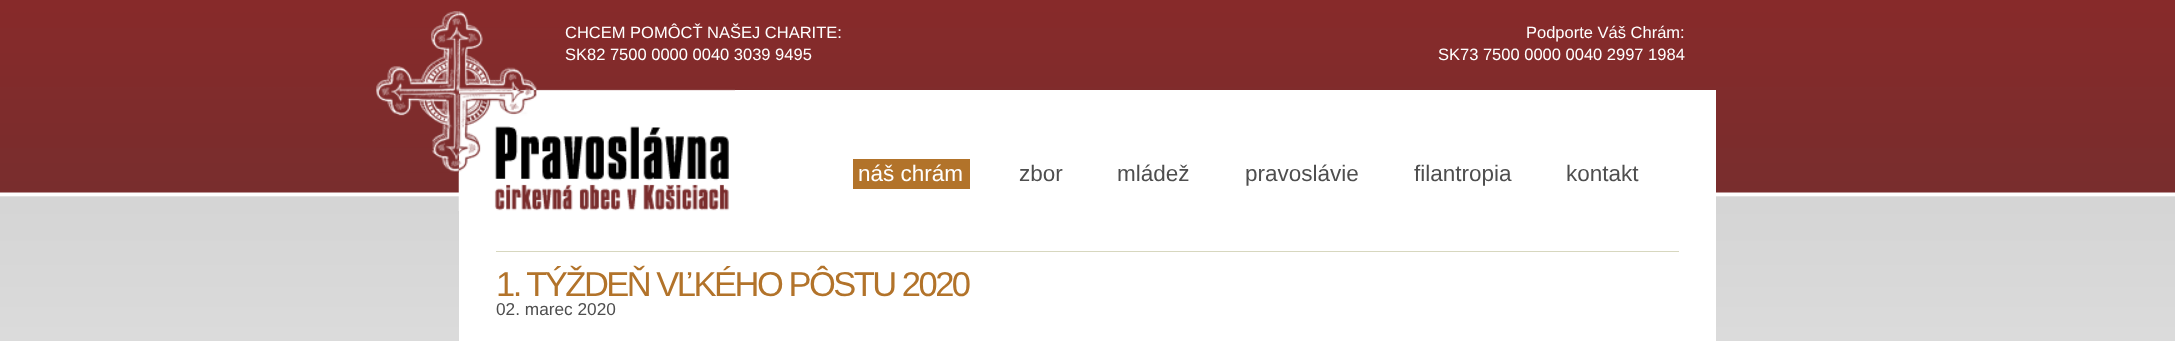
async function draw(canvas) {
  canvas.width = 2175;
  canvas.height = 341;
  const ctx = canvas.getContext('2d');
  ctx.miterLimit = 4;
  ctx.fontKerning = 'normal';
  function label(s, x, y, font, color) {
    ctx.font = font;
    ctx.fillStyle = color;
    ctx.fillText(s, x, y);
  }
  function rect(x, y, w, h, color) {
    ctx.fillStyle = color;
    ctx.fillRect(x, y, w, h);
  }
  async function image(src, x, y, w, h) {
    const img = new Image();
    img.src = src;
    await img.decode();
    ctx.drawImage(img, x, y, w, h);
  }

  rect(0, 0, 2175, 341, '#fff');
  await image('assets/img1.png', 0, 0, 2175, 341);
  rect(459, 90, 1257, 251, '#fff');
  await image('assets/img2.png', 459, 0, 1257, 90);
  await image('assets/img4.png', 458, 11, 277, 200);
  await image('assets/img3.png', 376, 11, 83, 162);
  label('CHCEM POMÔCŤ NAŠEJ CHARITE:', 565, 38, '16.5px Liberation Sans', '#fff');
  label('SK82 7500 0000 0040 3039 9495', 565, 60, '16.5px Liberation Sans', '#fff');
  label('Podporte Váš Chrám:', 1526, 38, '16.5px Liberation Sans', '#fff');
  label('SK73 7500 0000 0040 2997 1984', 1438, 60, '16.5px Liberation Sans', '#fff');
  rect(853, 159, 117, 30, '#b2732a');
  label('náš chrám', 858, 181, '22.5px Liberation Sans', '#fff');
  label('zbor', 1019, 181, '22.5px Liberation Sans', '#4e4e4e');
  label('mládež', 1117, 181, '22.5px Liberation Sans', '#4e4e4e');
  label('pravoslávie', 1245, 181, '22.5px Liberation Sans', '#4e4e4e');
  label('filantropia', 1414, 181, '22.5px Liberation Sans', '#4e4e4e');
  label('kontakt', 1566, 181, '22.5px Liberation Sans', '#4e4e4e');
  rect(496, 251, 1183, 1, '#d7d7bf');
  ctx.letterSpacing = '-2.5px';
  label('1. TÝŽDEŇ VĽKÉHO PÔSTU 2020', 496, 296, '34.5px Liberation Sans', '#b2732a');
  ctx.letterSpacing = '0px';
  label('02. marec 2020', 496, 315, '17.25px Liberation Sans', '#4e4e4e');
}

draw(document.querySelector('canvas'));
